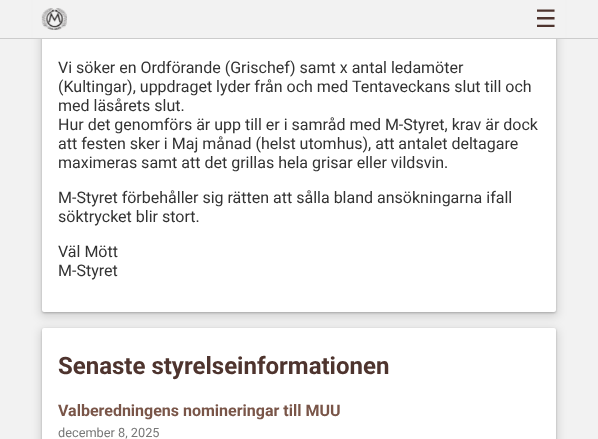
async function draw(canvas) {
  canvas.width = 598;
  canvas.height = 439;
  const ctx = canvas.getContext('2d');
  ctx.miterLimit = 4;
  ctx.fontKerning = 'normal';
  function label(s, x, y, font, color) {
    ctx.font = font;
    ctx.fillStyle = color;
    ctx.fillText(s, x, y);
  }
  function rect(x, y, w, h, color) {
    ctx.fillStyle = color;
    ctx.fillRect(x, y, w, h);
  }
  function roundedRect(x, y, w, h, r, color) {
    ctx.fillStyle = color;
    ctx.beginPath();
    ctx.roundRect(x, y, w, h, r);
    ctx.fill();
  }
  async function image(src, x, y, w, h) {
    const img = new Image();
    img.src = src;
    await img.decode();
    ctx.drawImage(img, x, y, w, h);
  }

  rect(0, 0, 598, 439, '#f2f2f2');
  ctx.fillStyle = '#0000003d';
  ctx.filter = 'blur(1px)';
  ctx.beginPath();
  ctx.roundRect(42, -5, 514, 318, 2);
  ctx.fill();
  ctx.filter = 'none';
  ctx.fillStyle = '#0000001f';
  ctx.filter = 'blur(5px)';
  ctx.beginPath();
  ctx.roundRect(40, -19, 518, 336, 4);
  ctx.fill();
  ctx.filter = 'none';
  roundedRect(42, -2, 514, 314, 2, '#fff');
  rect(33, 0, 532, 38, '#f2f2f2');
  rect(0, 38, 598, 1, '#ccc');
  await image('assets/img1.png', 41, 8, 26, 22);
  label('☰', 535, 27, '24px DejaVu Sans', '#4e342e');
  label('Vi söker en Ordförande (Grischef) samt x antal ledamöter', 58, 73, '16px Roboto', '#333');
  label('(Kultingar), uppdraget lyder från och med Tentaveckans slut till och', 58, 92, '16px Roboto', '#333');
  label('med läsårets slut.', 58, 111, '16px Roboto', '#333');
  label('Hur det genomförs är upp till er i samråd med M-Styret, krav är dock', 58, 130, '16px Roboto', '#333');
  label('att festen sker i Maj månad (helst utomhus), att antalet deltagare', 58, 149, '16px Roboto', '#333');
  label('maximeras samt att det grillas hela grisar eller vildsvin.', 58, 168, '16px Roboto', '#333');
  label('M-Styret förbehåller sig rätten att sålla bland ansökningarna ifall', 58, 203, '16px Roboto', '#333');
  label('söktrycket blir stort.', 58, 222, '16px Roboto', '#333');
  label('Väl Mött', 58, 257, '16px Roboto', '#333');
  label('M-Styret', 58, 276, '16px Roboto', '#333');
  ctx.fillStyle = '#0000003d';
  ctx.filter = 'blur(1px)';
  ctx.beginPath();
  ctx.roundRect(42, 329, 514, 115, 2);
  ctx.fill();
  ctx.filter = 'none';
  ctx.fillStyle = '#0000001f';
  ctx.filter = 'blur(5px)';
  ctx.beginPath();
  ctx.roundRect(40, 329, 518, 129, 4);
  ctx.fill();
  ctx.filter = 'none';
  roundedRect(42, 328, 514, 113, 2, '#fff');
  label('Senaste styrelseinformationen', 58, 374, 'bold 24px Roboto', '#4e342e');
  label('Valberedningens nomineringar till MUU', 58, 416, 'bold 16px Roboto', '#795548');
  label('december 8, 2025', 58, 437, '12.75px Roboto', '#777');
}

draw(document.querySelector('canvas'));
